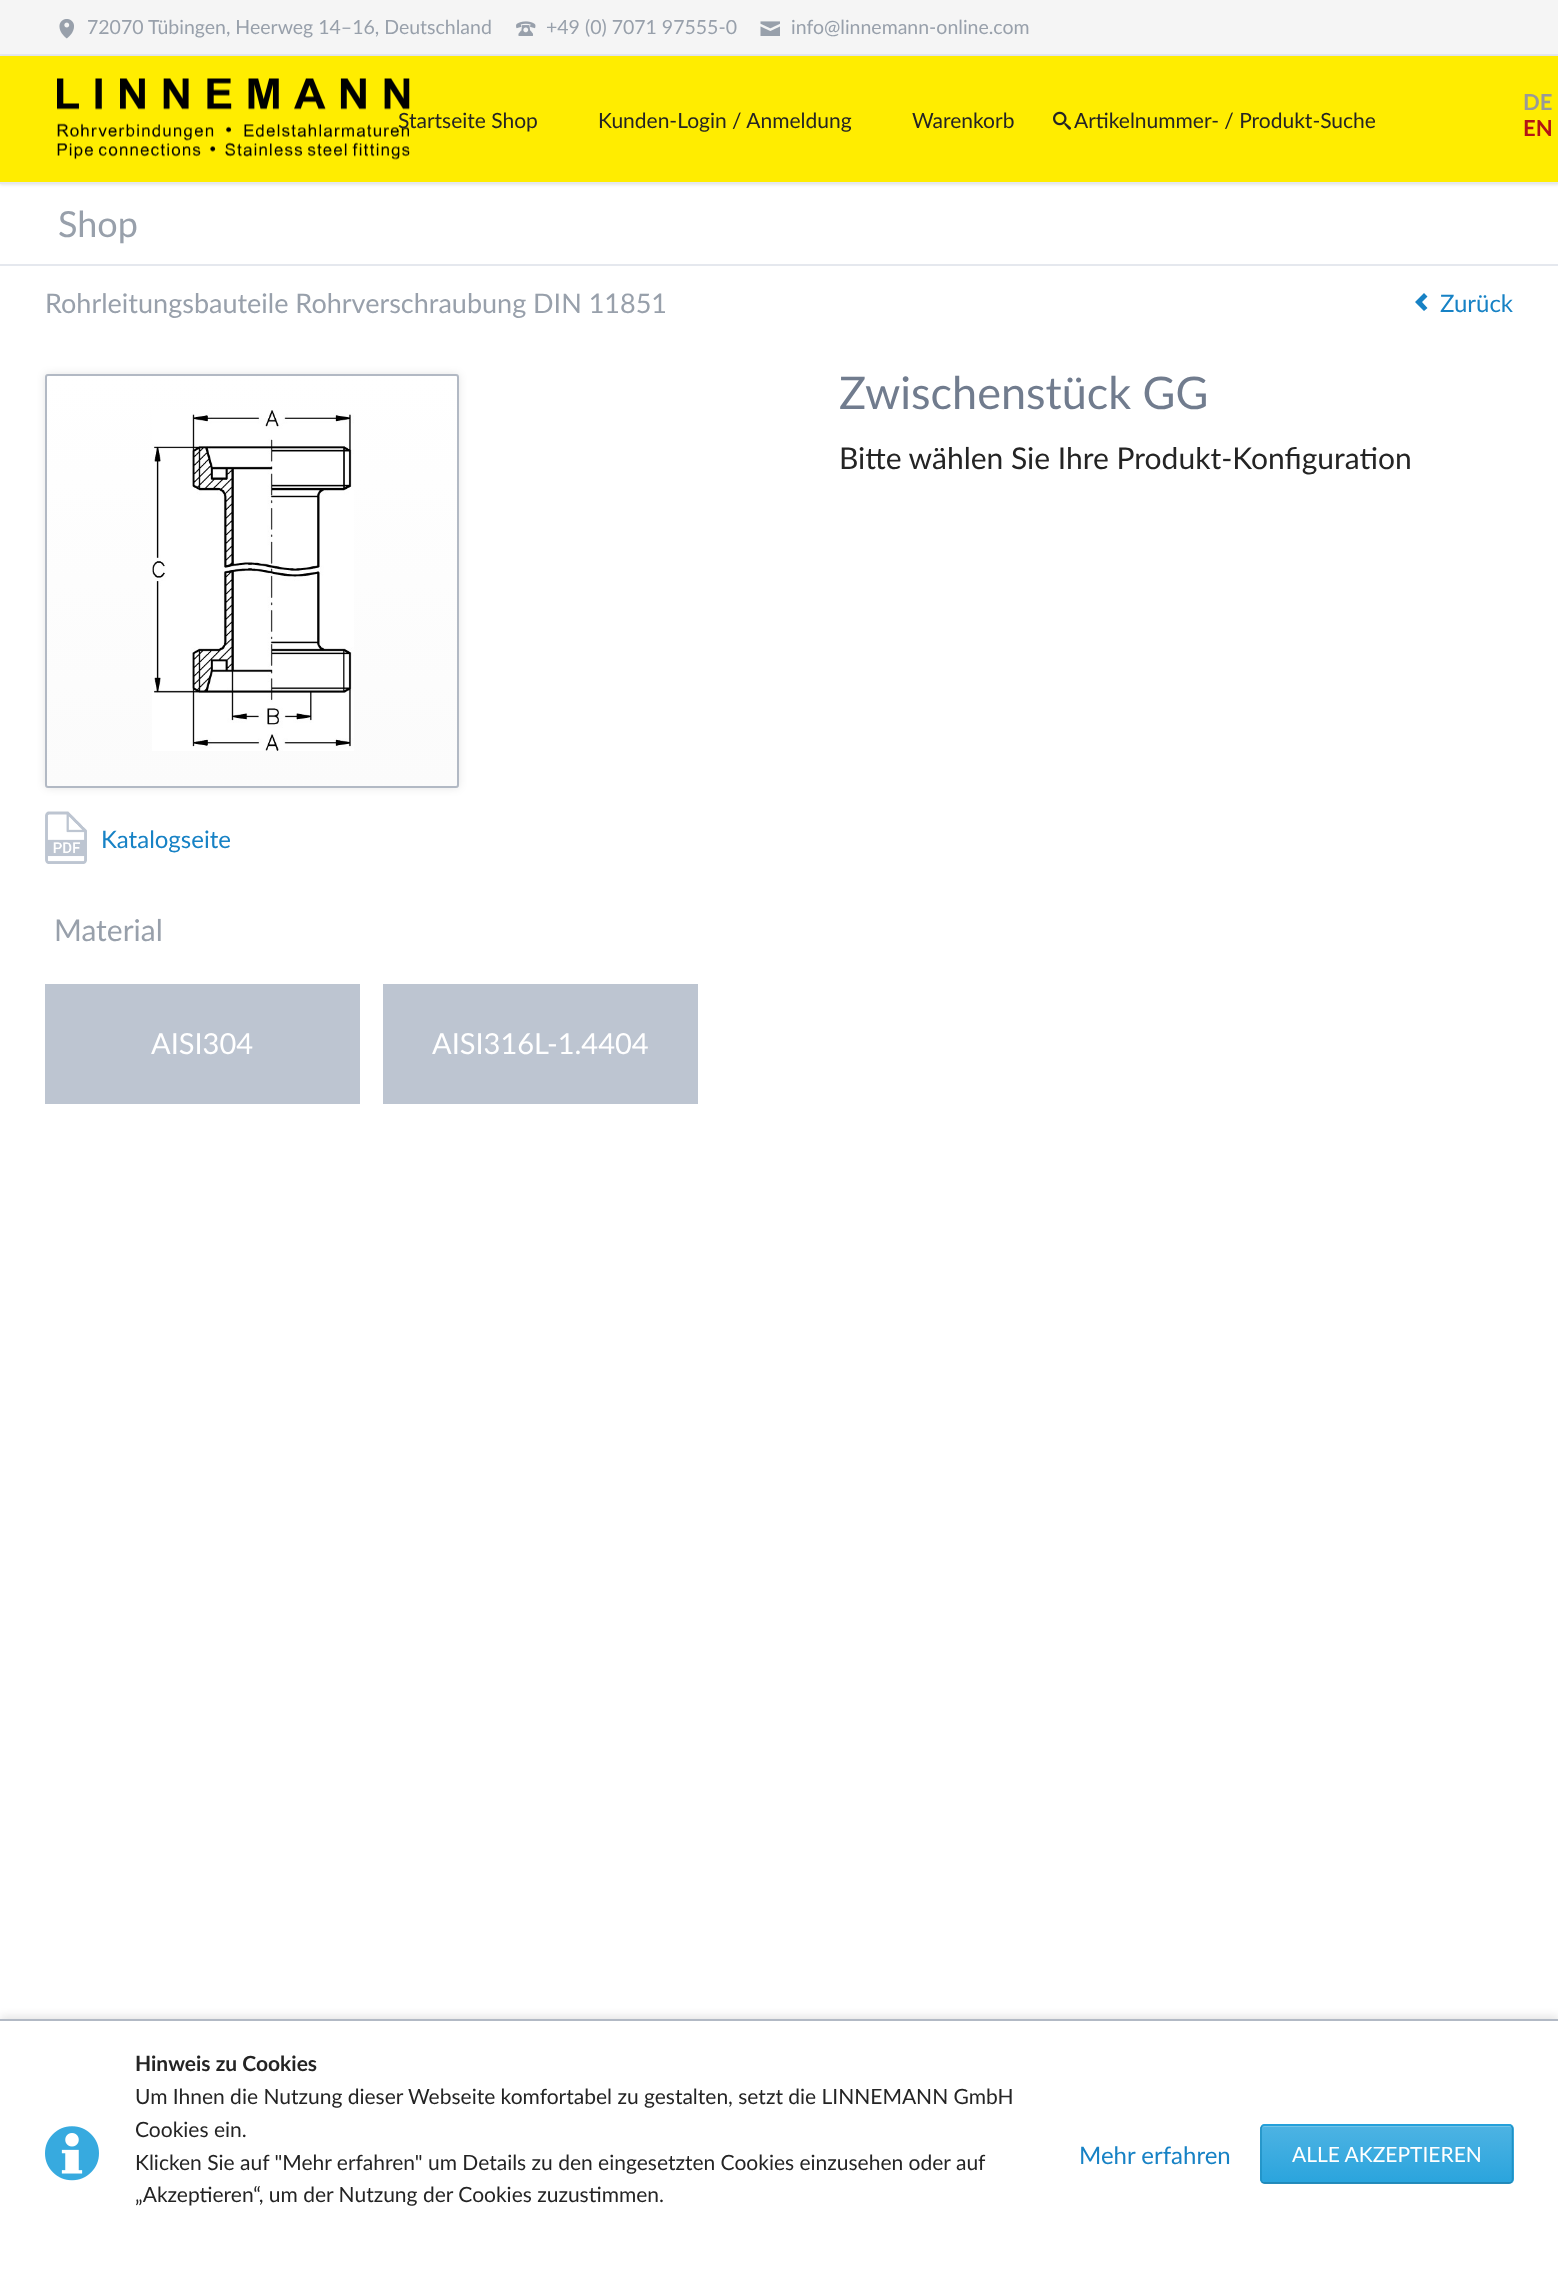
async function draw(canvas) {
  canvas.width = 1558;
  canvas.height = 2288;
  const ctx = canvas.getContext('2d');
  ctx.miterLimit = 4;
  ctx.fontKerning = 'normal';
  function label(s, x, y, font, color) {
    ctx.font = font;
    ctx.fillStyle = color;
    ctx.fillText(s, x, y);
  }
  function rect(x, y, w, h, color) {
    ctx.fillStyle = color;
    ctx.fillRect(x, y, w, h);
  }
  async function image(src, x, y, w, h) {
    const img = new Image();
    img.src = src;
    await img.decode();
    ctx.drawImage(img, x, y, w, h);
  }
  let gradient, path;

  rect(0, 0, 1558, 2288, '#fff');
  rect(0, 0, 1558, 54, '#f5f5f5');
  rect(0, 54, 1558, 2, '#e5e8ee');
  await image('assets/img1.png', 59, 19, 15, 20);
  label('72070 Tübingen, Heerweg 14–16, Deutschland', 87, 34, '19.5px Lato', '#98a0ab');
  await image('assets/img2.png', 516, 21, 20, 15);
  label('+49 (0) 7071 97555-0', 546, 34, '19.5px Lato', '#98a0ab');
  await image('assets/img3.png', 760, 21, 20, 15);
  label('info@linnemann-online.com', 791, 34, '19.5px Lato', '#98a0ab');
  ctx.fillStyle = '#0000001a';
  ctx.filter = 'blur(1.5px)';
  ctx.beginPath();
  ctx.rect(0, 57, 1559, 128);
  ctx.fill();
  ctx.filter = 'none';
  rect(0, 56, 1558, 126, '#ffed00');
  rect(0, 182, 1558, 2, '#e5e8ee');
  await image('assets/img4.png', 57, 78, 353, 82);
  label('Startseite Shop', 398, 128, '21px Lato', '#242424');
  label('Kunden-Login / Anmeldung', 598, 128, '21px Lato', '#242424');
  label('Warenkorb', 912, 128, '21px Lato', '#242424');
  await image('assets/img5.png', 1053, 111, 18, 19);
  label('Artikelnummer- / Produkt-Suche', 1074, 128, '21px Lato', '#242424');
  label('DE', 1523, 110, 'bold 22px Lato', '#999');
  label('EN', 1523, 136, 'bold 22px Lato', '#b31515');
  rect(0, 264, 1558, 2, '#e5e8ee');
  label('Shop', 58, 237, '36px Lato', '#98a0ab');
  label('Rohrleitungsbauteile Rohrverschraubung DIN 11851', 45, 313, '27px Lato', '#98a0ab');
  label('Zwischenstück GG', 839, 409, '45px Lato', '#717c8e');
  label('Bitte wählen Sie Ihre Produkt-Konfiguration', 839, 469, '30px Lato', '#242424');
  ctx.fillStyle = '#0000001a';
  ctx.filter = 'blur(4px)';
  ctx.beginPath();
  ctx.roundRect(45, 374, 414, 414, 3);
  ctx.fill();
  ctx.filter = 'none';
  ctx.save();
  ctx.beginPath();
  ctx.roundRect(45, 374, 414, 414, 3);
  ctx.clip();
  gradient = ctx.createLinearGradient(252, 375, 252, 786);
  gradient.addColorStop(0, '#fff');
  gradient.addColorStop(1, '#fbfbfb');
  ctx.fillStyle = gradient;
  ctx.fillRect(45, 375, 414, 411);
  ctx.restore();
  ctx.beginPath();
  ctx.roundRect(46, 375, 412, 412, 2);
  ctx.strokeStyle = '#b2b9c4';
  ctx.lineWidth = 2;
  ctx.stroke();
  await image('assets/img6.png', 152, 410, 202, 341);
  await image('assets/img7.png', 45, 811, 42, 53);
  label('Katalogseite', 101, 848, '24px Lato', '#1782c5');
  label('Material', 54, 941, '30px Lato', '#98a0ab');
  rect(45, 984, 315, 120, '#bdc5d1');
  label('AISI304', 151, 1054, '29px Lato', '#fff');
  rect(383, 984, 315, 120, '#bdc5d1');
  label('AISI316L-1.4404', 432, 1054, '29px Lato', '#fff');
  ctx.fillStyle = '#1782c5';
  path = new Path2D('M1424 311L1427.5 308L1422 302L1427.5 296.5L1424 293L1415 302Z');
  ctx.fill(path);
  label('Zurück', 1440, 312, '24px Lato', '#1782c5');
  ctx.fillStyle = '#0000001a';
  ctx.filter = 'blur(4px)';
  ctx.beginPath();
  ctx.rect(0, 2016, 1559, 270);
  ctx.fill();
  ctx.filter = 'none';
  rect(0, 2021, 1558, 267, '#fff');
  rect(0, 2019, 1558, 2, '#b2b9c4');
  await image('assets/img8.png', 45, 2126, 54, 55);
  label('Hinweis zu Cookies', 135, 2071, 'bold 21px Lato', '#242424');
  label('Um Ihnen die Nutzung dieser Webseite komfortabel zu gestalten, setzt die LINNEMANN GmbH', 135, 2104, '21px Lato', '#242424');
  label('Cookies ein.', 135, 2137, '21px Lato', '#242424');
  label('Klicken Sie auf "Mehr erfahren" um Details zu den eingesetzten Cookies einzusehen oder auf', 135, 2170, '21px Lato', '#242424');
  label('„Akzeptieren“, um der Nutzung der Cookies zuzustimmen.', 135, 2202, '21px Lato', '#242424');
  label('Mehr erfahren', 1079, 2164, '24px Lato', '#1782c5');
  ctx.save();
  ctx.beginPath();
  ctx.roundRect(1260, 2124, 254, 60, 5);
  ctx.clip();
  gradient = ctx.createLinearGradient(1387, 2069, 1387, 2126);
  gradient.addColorStop(0, '#4db3e3');
  gradient.addColorStop(1, '#2aa4dd');
  ctx.fillStyle = gradient;
  ctx.fillRect(1260, 2124, 254, 2);
  gradient = ctx.createLinearGradient(1387, 2126, 1387, 2183);
  gradient.addColorStop(0, '#4db3e3');
  gradient.addColorStop(1, '#2aa4dd');
  ctx.fillStyle = gradient;
  ctx.fillRect(1260, 2126, 254, 57);
  gradient = ctx.createLinearGradient(1387, 2183, 1387, 2240);
  gradient.addColorStop(0, '#4db3e3');
  gradient.addColorStop(1, '#2aa4dd');
  ctx.fillStyle = gradient;
  ctx.fillRect(1260, 2183, 254, 1);
  ctx.restore();
  ctx.fillStyle = '#73c3e8';
  path = new Path2D('M1264 2127H1510L1512 2128V2130C1512 2128 1511 2126 1509 2126H1265C1263 2126 1262 2128 1262 2130C1262 2128 1263 2127 1264 2127Z');
  ctx.fill(path);
  path = new Path2D('M1262 2126C1262.5 2125 1263.5 2125 1264.5 2125H1509C1510 2125 1511 2125 1511.5 2126');
  ctx.strokeStyle = '#23a0da';
  ctx.lineWidth = 1.5;
  ctx.stroke(path);
  path = new Path2D('M1511.5 2126L1512.5 2128V2180L1511.5 2182');
  ctx.strokeStyle = '#1f90c4';
  ctx.stroke(path);
  path = new Path2D('M1511.5 2182C1511 2183 1510 2183 1509 2183H1264.5C1263.5 2183 1262.5 2183 1262 2182');
  ctx.strokeStyle = '#1c80ae';
  ctx.stroke(path);
  path = new Path2D('M1262 2182L1261 2180V2128L1262 2126');
  ctx.strokeStyle = '#1f90c4';
  ctx.stroke(path);
  label('ALLE AKZEPTIEREN', 1292, 2162, '21px Lato', '#fff');
}

draw(document.querySelector('canvas'));
